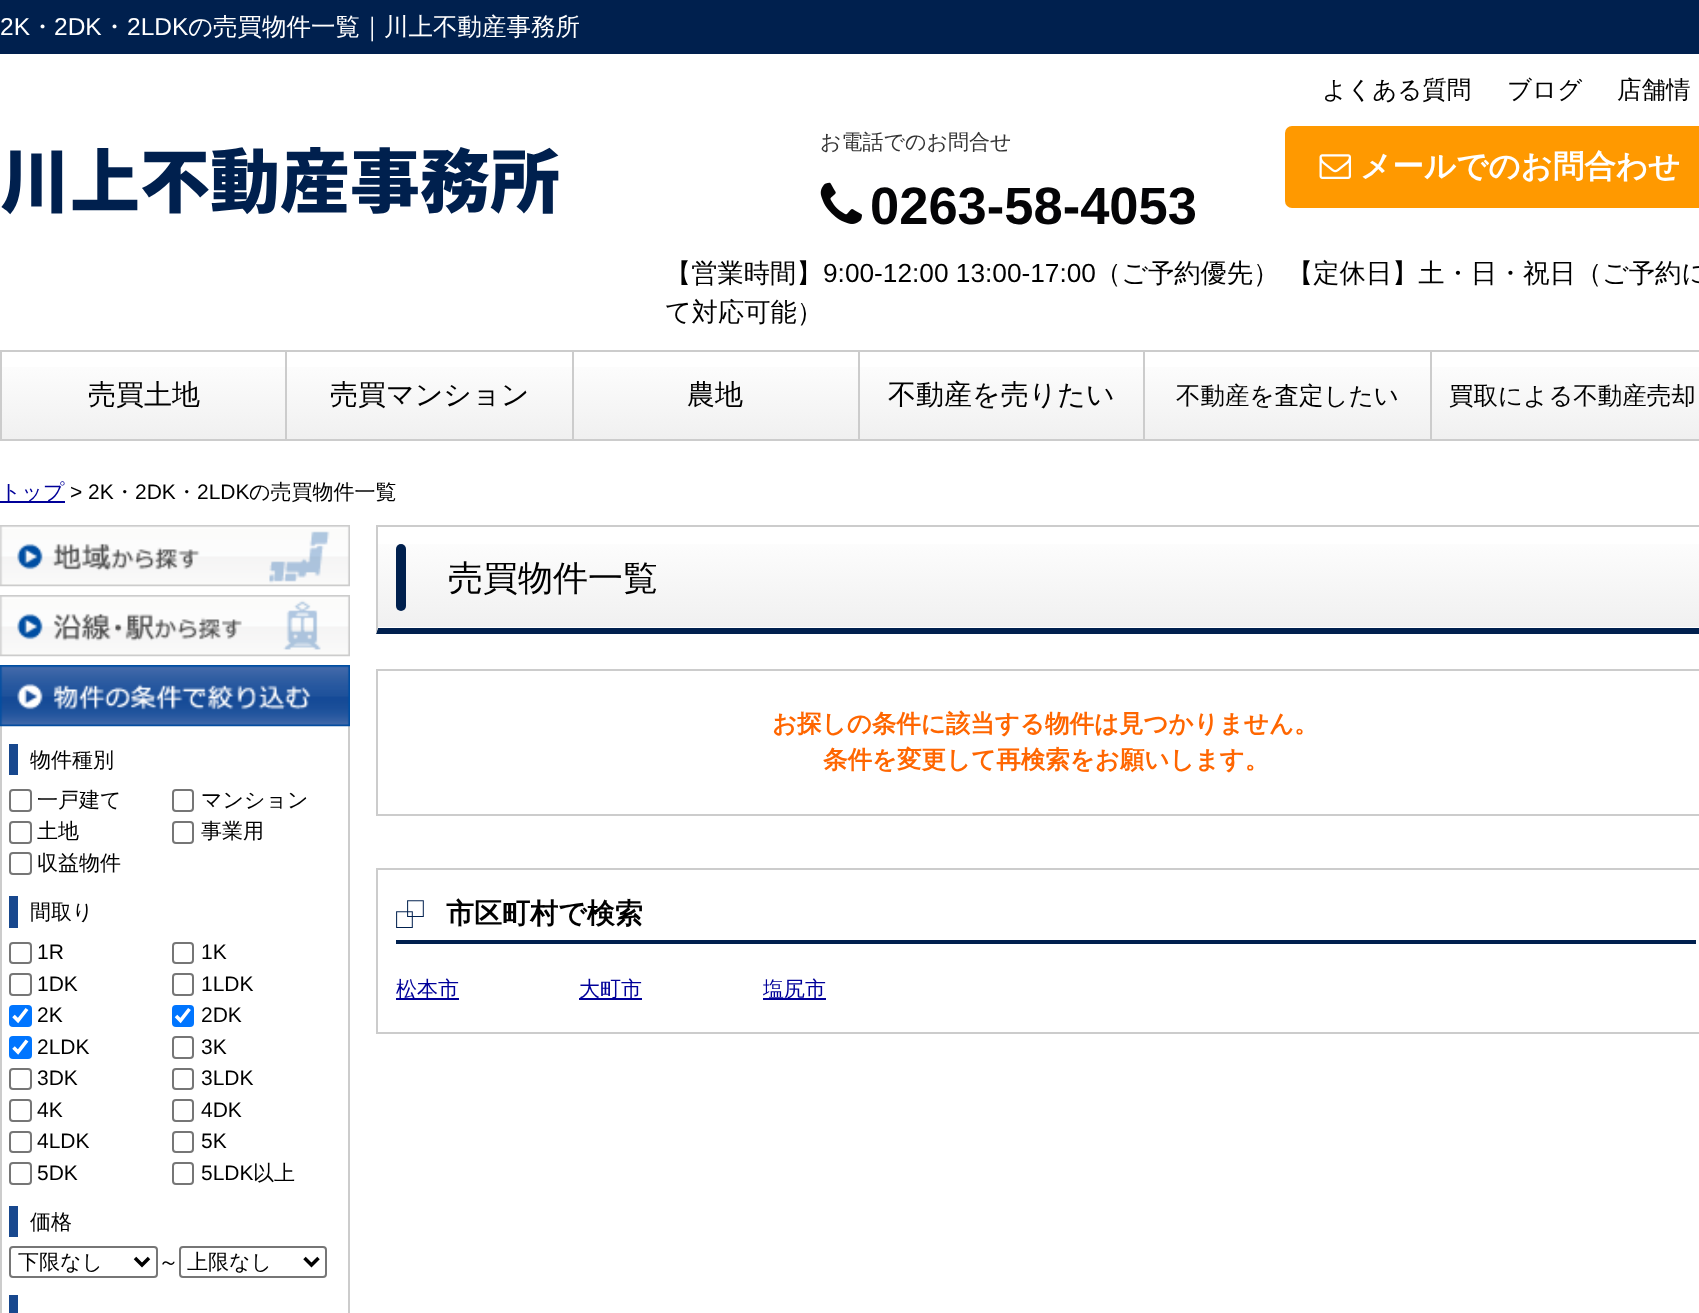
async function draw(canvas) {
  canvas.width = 1699;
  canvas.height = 1313;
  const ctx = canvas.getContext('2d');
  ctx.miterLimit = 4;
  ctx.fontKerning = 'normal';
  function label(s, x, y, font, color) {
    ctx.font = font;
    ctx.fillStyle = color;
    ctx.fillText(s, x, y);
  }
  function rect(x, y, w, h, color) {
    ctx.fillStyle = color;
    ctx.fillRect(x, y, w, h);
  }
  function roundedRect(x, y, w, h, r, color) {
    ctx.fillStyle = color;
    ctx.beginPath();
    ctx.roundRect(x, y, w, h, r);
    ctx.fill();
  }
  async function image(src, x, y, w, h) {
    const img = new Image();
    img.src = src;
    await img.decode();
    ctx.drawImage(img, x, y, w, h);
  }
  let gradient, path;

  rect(0, 0, 1699, 1313, '#fff');
  rect(0, 0, 1699, 54, '#00204e');
  label('2K', 0, 35, '24.5px Liberation Sans', '#fff');
  label('・', 30, 35, '500 24.5px WenQuanYi Zen Hei', '#fff');
  label('2DK', 54, 35, '24.5px Liberation Sans', '#fff');
  label('・', 102, 35, '500 24.5px WenQuanYi Zen Hei', '#fff');
  label('2LDK', 127, 35, '24.5px Liberation Sans', '#fff');
  label('の売買物件一覧｜川上不動産事務所', 188, 35, '500 24.5px WenQuanYi Zen Hei', '#fff');
  label('よくある質問', 1322, 98, '500 24.5px WenQuanYi Zen Hei', '#000');
  label('ブログ', 1507, 98, '500 24.5px WenQuanYi Zen Hei', '#000');
  label('店舗情', 1617, 98, '500 24.5px WenQuanYi Zen Hei', '#000');
  label('川上不動産事務所', 0, 207, '900 70px Noto Sans JP', '#00204e');
  label('お電話でのお問合せ', 820, 149, '500 21px WenQuanYi Zen Hei', '#333');
  await image('assets/img1.png', 820, 182, 42, 42);
  label('0263-58-4053', 870, 224, 'bold 52.5px Liberation Sans', '#040406');
  roundedRect(1285, 126, 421, 82, 7, '#f90');
  await image('assets/img2.png', 1319, 154, 32, 25);
  label('メールでのお問合わせ', 1360, 177, 'bold 31.5px WenQuanYi Zen Hei', '#fff');
  label('【営業時間】', 665, 282, '500 26.25px WenQuanYi Zen Hei', '#000');
  label('9:00-12:00 13:00-17:00', 823, 282, '26.25px Liberation Sans', '#000');
  label('（ご予約優先）', 1095, 282, '500 26.25px WenQuanYi Zen Hei', '#000');
  label('【定休日】土・日・祝日（ご予約に', 1287, 282, '500 26.25px WenQuanYi Zen Hei', '#000');
  label('て対応可能）', 665, 321, '500 26.25px WenQuanYi Zen Hei', '#000');
  gradient = ctx.createLinearGradient(858, 352, 858, 439);
  gradient.addColorStop(0, '#fff');
  gradient.addColorStop(1, '#f0f0f0');
  ctx.fillStyle = gradient;
  ctx.fillRect(2, 367, 1697, 72);
  rect(0, 350, 1699, 2, '#ccc');
  rect(0, 439, 1699, 2, '#ccc');
  rect(0, 352, 2, 87, '#ccc');
  label('売買土地', 88, 404, '500 28px WenQuanYi Zen Hei', '#000');
  rect(285, 352, 2, 87, '#ccc');
  label('売買マンション', 330, 404, '500 28px WenQuanYi Zen Hei', '#000');
  rect(572, 352, 2, 87, '#ccc');
  label('農地', 687, 404, '500 28px WenQuanYi Zen Hei', '#000');
  rect(858, 352, 2, 87, '#ccc');
  label('不動産を売りたい', 888, 404, '500 28px WenQuanYi Zen Hei', '#000');
  rect(1143, 352, 2, 87, '#ccc');
  label('不動産を査定したい', 1176, 404, '500 24.5px WenQuanYi Zen Hei', '#000');
  rect(1430, 352, 2, 87, '#ccc');
  label('買取による不動産売却', 1449, 404, '500 24.5px WenQuanYi Zen Hei', '#000');
  rect(0, 501, 65, 2, '#009');
  label('トップ', 0, 499, '500 21px WenQuanYi Zen Hei', '#009');
  label('> 2K', 70, 499, '21px Liberation Sans', '#000');
  label('・', 114, 499, '500 21px WenQuanYi Zen Hei', '#000');
  label('2DK', 135, 499, '21px Liberation Sans', '#000');
  label('・', 176, 499, '500 21px WenQuanYi Zen Hei', '#000');
  label('2LDK', 197, 499, '21px Liberation Sans', '#000');
  label('の売買物件一覧', 249, 499, '500 21px WenQuanYi Zen Hei', '#000');
  await image('assets/img3.png', 0, 525, 350, 62);
  await image('assets/img4.png', 0, 595, 350, 62);
  rect(348, 726, 2, 587, '#ccc');
  rect(0, 726, 2, 587, '#ccc');
  await image('assets/img5.png', 0, 665, 350, 62);
  rect(9, 744, 9, 31, '#18488e');
  label('物件種別', 30, 767, '500 21px WenQuanYi Zen Hei', '#000');
  ctx.beginPath();
  ctx.roundRect(10, 790, 21, 21, 3);
  ctx.strokeStyle = '#767676';
  ctx.lineWidth = 2;
  ctx.stroke();
  label('一戸建て', 37, 807, '500 21px WenQuanYi Zen Hei', '#000');
  ctx.beginPath();
  ctx.roundRect(173, 790, 20, 21, 3);
  ctx.stroke();
  label('マンション', 201, 807, '500 21px WenQuanYi Zen Hei', '#000');
  ctx.beginPath();
  ctx.roundRect(10, 822, 21, 21, 3);
  ctx.stroke();
  label('土地', 37, 838, '500 21px WenQuanYi Zen Hei', '#000');
  ctx.beginPath();
  ctx.roundRect(173, 822, 20, 21, 3);
  ctx.stroke();
  label('事業用', 201, 838, '500 21px WenQuanYi Zen Hei', '#000');
  ctx.beginPath();
  ctx.roundRect(10, 853, 21, 21, 3);
  ctx.stroke();
  label('収益物件', 37, 870, '500 21px WenQuanYi Zen Hei', '#000');
  rect(9, 896, 9, 32, '#18488e');
  label('間取り', 30, 919, '500 21px WenQuanYi Zen Hei', '#000');
  ctx.beginPath();
  ctx.roundRect(10, 943, 21, 20, 3);
  ctx.stroke();
  label('1R', 37, 959, '21px Liberation Sans', '#000');
  ctx.beginPath();
  ctx.roundRect(173, 943, 20, 20, 3);
  ctx.stroke();
  label('1K', 201, 959, '21px Liberation Sans', '#000');
  ctx.beginPath();
  ctx.roundRect(10, 974, 21, 21, 3);
  ctx.stroke();
  label('1DK', 37, 991, '21px Liberation Sans', '#000');
  ctx.beginPath();
  ctx.roundRect(173, 974, 20, 21, 3);
  ctx.stroke();
  label('1LDK', 201, 991, '21px Liberation Sans', '#000');
  roundedRect(9, 1005, 23, 22, 4, '#0075ff');
  path = new Path2D('M13.5 1016L18 1020.5L27 1009');
  ctx.strokeStyle = '#fff';
  ctx.lineWidth = 3.6;
  ctx.stroke(path);
  label('2K', 37, 1022, '21px Liberation Sans', '#000');
  roundedRect(172, 1005, 22, 22, 4, '#0075ff');
  path = new Path2D('M176 1016L180.5 1020.5L189.5 1009');
  ctx.stroke(path);
  label('2DK', 201, 1022, '21px Liberation Sans', '#000');
  roundedRect(9, 1036, 23, 23, 4, '#0075ff');
  path = new Path2D('M13.5 1047.5L18 1052L27 1040.5');
  ctx.stroke(path);
  label('2LDK', 37, 1054, '21px Liberation Sans', '#000');
  ctx.beginPath();
  ctx.roundRect(173, 1037, 20, 21, 3);
  ctx.strokeStyle = '#767676';
  ctx.lineWidth = 2;
  ctx.stroke();
  label('3K', 201, 1054, '21px Liberation Sans', '#000');
  ctx.beginPath();
  ctx.roundRect(10, 1069, 21, 20, 3);
  ctx.stroke();
  label('3DK', 37, 1085, '21px Liberation Sans', '#000');
  ctx.beginPath();
  ctx.roundRect(173, 1069, 20, 20, 3);
  ctx.stroke();
  label('3LDK', 201, 1085, '21px Liberation Sans', '#000');
  ctx.beginPath();
  ctx.roundRect(10, 1100, 21, 21, 3);
  ctx.stroke();
  label('4K', 37, 1117, '21px Liberation Sans', '#000');
  ctx.beginPath();
  ctx.roundRect(173, 1100, 20, 21, 3);
  ctx.stroke();
  label('4DK', 201, 1117, '21px Liberation Sans', '#000');
  ctx.beginPath();
  ctx.roundRect(10, 1132, 21, 20, 3);
  ctx.stroke();
  label('4LDK', 37, 1148, '21px Liberation Sans', '#000');
  ctx.beginPath();
  ctx.roundRect(173, 1132, 20, 20, 3);
  ctx.stroke();
  label('5K', 201, 1148, '21px Liberation Sans', '#000');
  ctx.beginPath();
  ctx.roundRect(10, 1163, 21, 21, 3);
  ctx.stroke();
  label('5DK', 37, 1180, '21px Liberation Sans', '#000');
  ctx.beginPath();
  ctx.roundRect(173, 1163, 20, 21, 3);
  ctx.stroke();
  label('5LDK', 201, 1180, '21px Liberation Sans', '#000');
  label('以上', 253, 1180, '500 21px WenQuanYi Zen Hei', '#000');
  rect(9, 1206, 9, 31, '#18488e');
  label('価格', 30, 1229, '500 21px WenQuanYi Zen Hei', '#000');
  ctx.beginPath();
  ctx.roundRect(10, 1247, 147, 30, 3);
  ctx.stroke();
  path = new Path2D('M135 1258L142 1265L149 1258');
  ctx.strokeStyle = '#000';
  ctx.lineWidth = 3.5;
  ctx.stroke(path);
  label('下限なし', 18, 1269, '500 21px WenQuanYi Zen Hei', '#000');
  label('～', 158, 1269, '500 21px WenQuanYi Zen Hei', '#000');
  ctx.beginPath();
  ctx.roundRect(180, 1247, 146, 30, 3);
  ctx.strokeStyle = '#767676';
  ctx.lineWidth = 2;
  ctx.stroke();
  path = new Path2D('M304.5 1258L311.5 1265L318.5 1258');
  ctx.strokeStyle = '#000';
  ctx.lineWidth = 3.5;
  ctx.stroke(path);
  label('上限なし', 187, 1269, '500 21px WenQuanYi Zen Hei', '#000');
  rect(9, 1295, 9, 18, '#18488e');
  gradient = ctx.createLinearGradient(1046, 527, 1046, 628);
  gradient.addColorStop(0, '#fff');
  gradient.addColorStop(1, '#f0f0f0');
  ctx.fillStyle = gradient;
  ctx.fillRect(378, 544, 1321, 83);
  rect(376, 525, 1323, 2, '#ccc');
  ctx.fillStyle = '#00204e';
  path = new Path2D('M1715 634H376L378 628H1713Z');
  ctx.fill(path);
  ctx.fillStyle = '#ccc';
  path = new Path2D('M376 634V525L378 527V628Z');
  ctx.fill(path);
  roundedRect(396, 544, 10, 67, 5, '#00204e');
  label('売買物件一覧', 448, 590, '500 35px WenQuanYi Zen Hei', '#000');
  ctx.strokeStyle = '#ccc';
  ctx.lineWidth = 2;
  ctx.strokeRect(377, 670, 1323, 145);
  label('お探しの条件に該当する物件は見つかりません。', 772, 732, 'bold 24.5px WenQuanYi Zen Hei', '#f60');
  label('条件を変更して再検索をお願いします。', 823, 768, 'bold 24.5px WenQuanYi Zen Hei', '#f60');
  ctx.strokeRect(377, 869, 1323, 164);
  rect(396, 940, 1300, 4, '#00204e');
  label('□', 407, 917, 'bold 28px Liberation Sans', '#00204e');
  label('市区町村で検索', 446, 923, 'bold 28px WenQuanYi Zen Hei', '#000');
  label('□', 396, 928, 'bold 28px Liberation Sans', '#00204e');
  rect(396, 998, 63, 2, '#009');
  label('松本市', 396, 996, '500 21px WenQuanYi Zen Hei', '#009');
  rect(579, 998, 63, 2, '#009');
  label('大町市', 579, 996, '500 21px WenQuanYi Zen Hei', '#009');
  rect(763, 998, 63, 2, '#009');
  label('塩尻市', 763, 996, '500 21px WenQuanYi Zen Hei', '#009');
}

draw(document.querySelector('canvas'));
